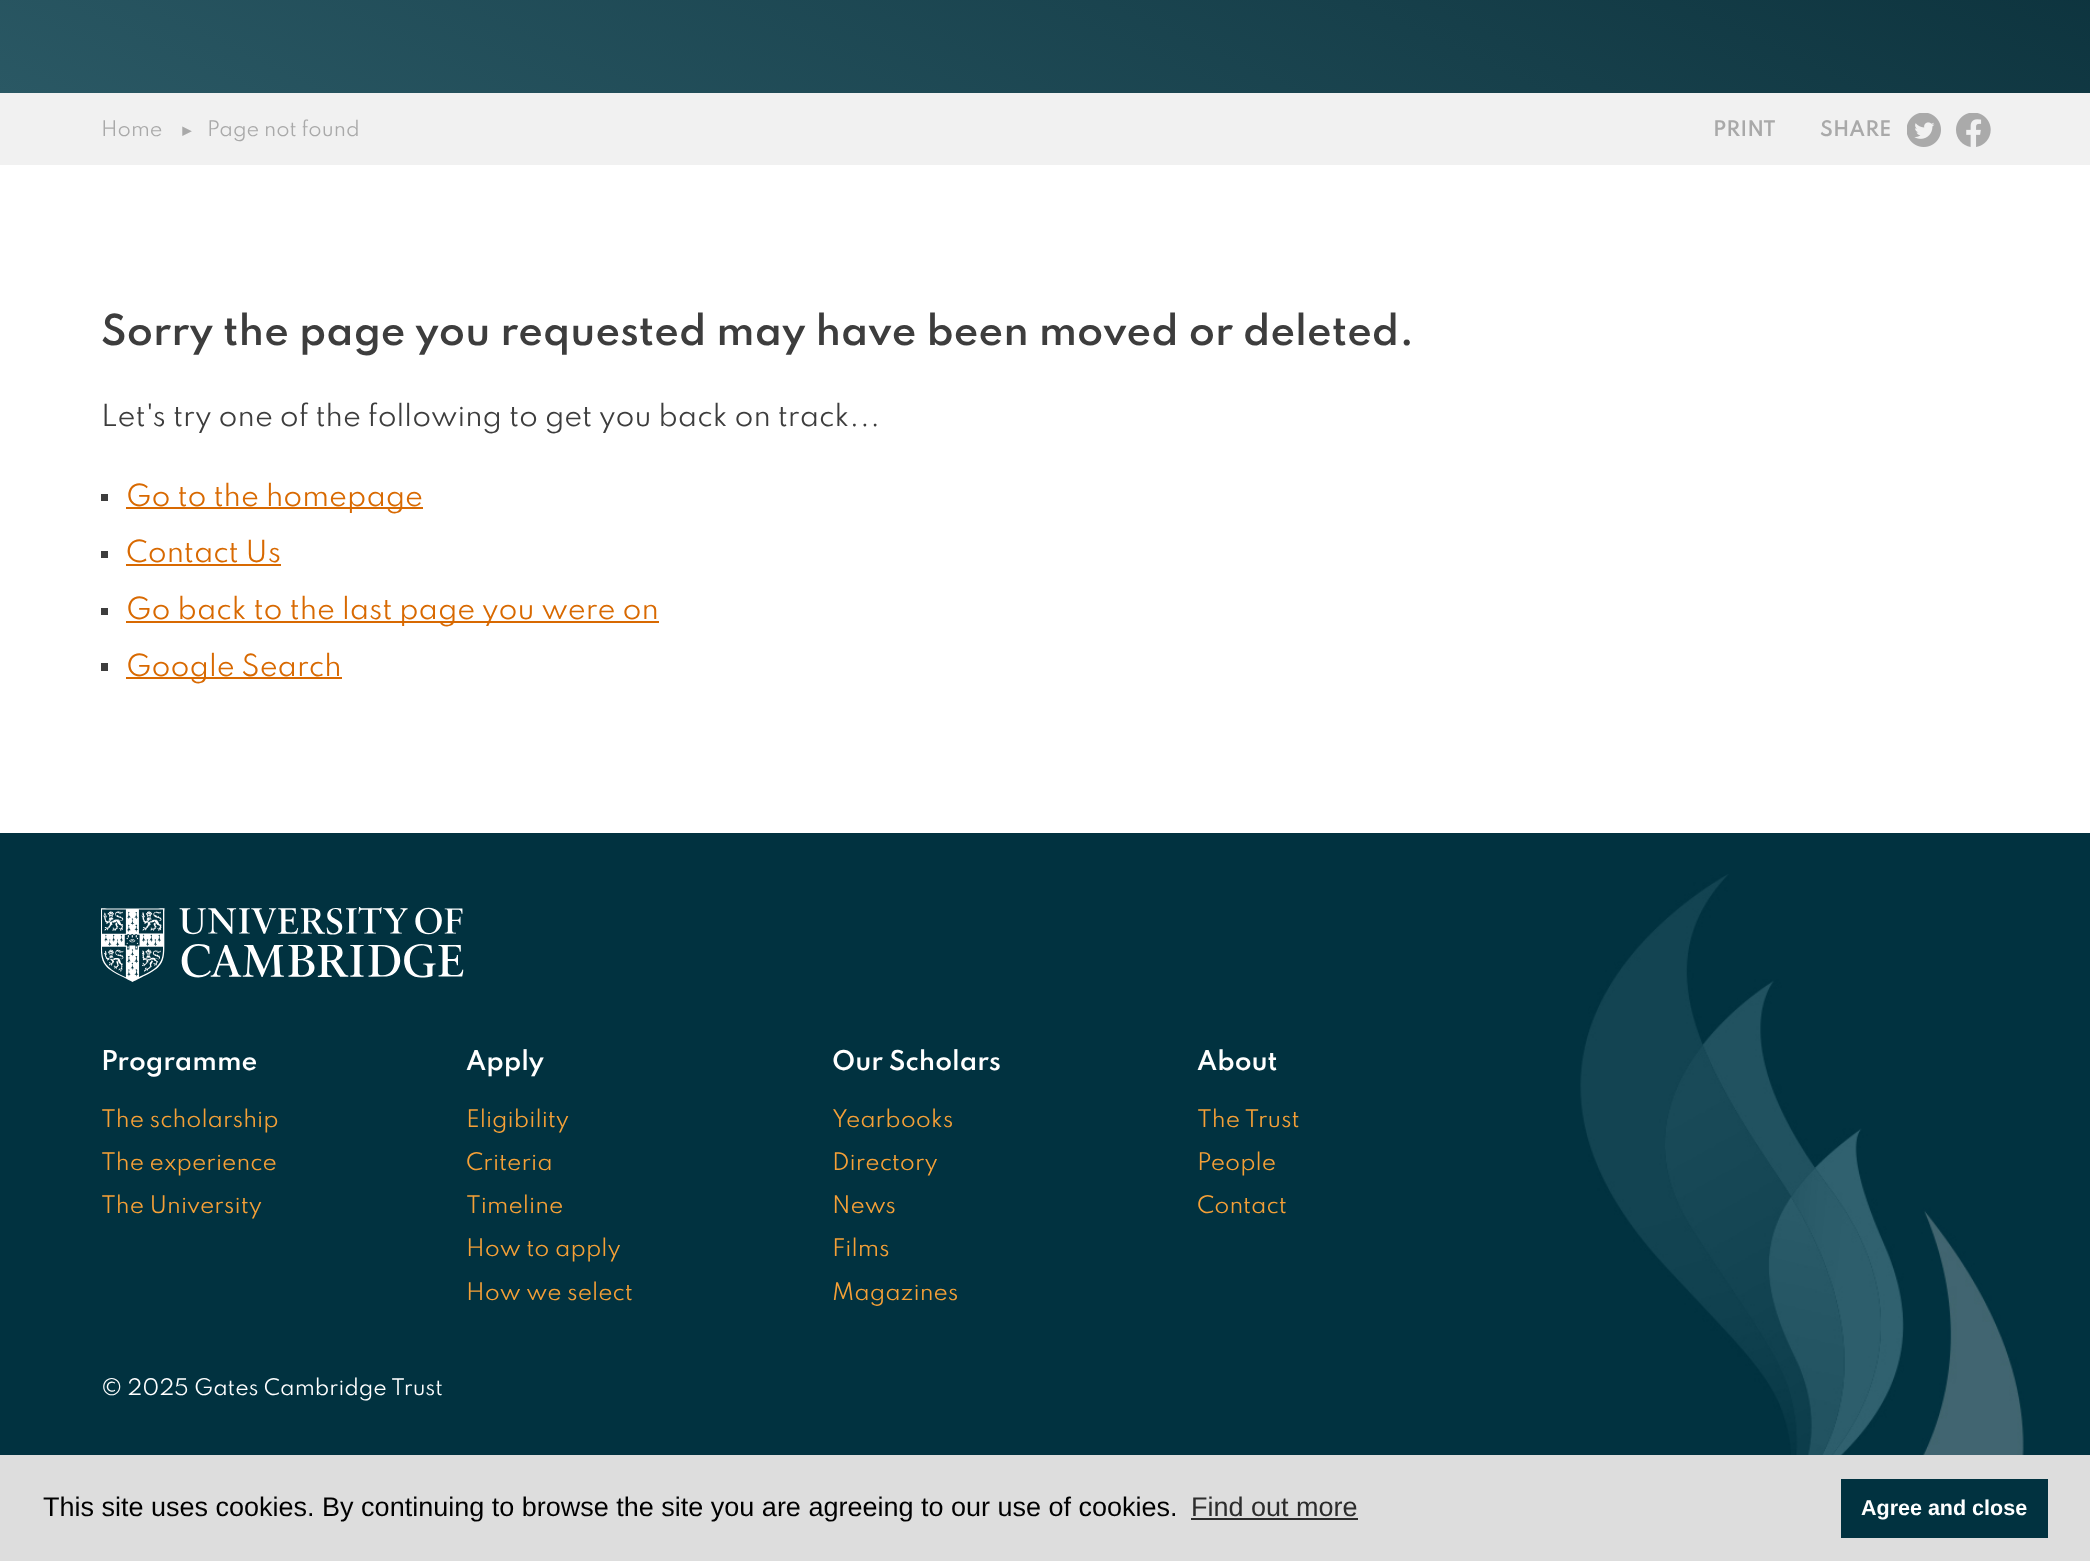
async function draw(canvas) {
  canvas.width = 2090;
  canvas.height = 1561;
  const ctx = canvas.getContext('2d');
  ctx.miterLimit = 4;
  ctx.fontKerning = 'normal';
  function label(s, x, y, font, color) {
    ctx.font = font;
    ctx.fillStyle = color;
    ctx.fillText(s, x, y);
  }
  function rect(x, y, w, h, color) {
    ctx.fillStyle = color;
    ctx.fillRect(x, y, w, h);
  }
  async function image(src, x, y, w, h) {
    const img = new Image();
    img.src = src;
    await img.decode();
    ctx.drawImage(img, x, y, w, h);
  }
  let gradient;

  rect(0, 0, 2090, 1561, '#fff');
  gradient = ctx.createLinearGradient(765, 450, 1326, -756);
  gradient.addColorStop(0, '#2a5864');
  gradient.addColorStop(1, '#032731');
  ctx.fillStyle = gradient;
  ctx.fillRect(0, 0, 2090, 93);
  rect(0, 93, 2090, 72, '#f1f1f1');
  label('Home', 101, 136, '19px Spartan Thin', '#a9a9a9');
  ctx.font = '19px DejaVu Sans';
  ctx.save();
  ctx.translate(192, 136);
  ctx.rotate(-90 * Math.PI / 180);
  ctx.fillText('▾', 0, 0);
  ctx.restore();
  label('Page not found', 207, 136, '19px Spartan Thin', '#a9a9a9');
  label('PRINT', 1713, 136, '600 19px Spartan Thin', '#a9a9a9');
  label('SHARE', 1820, 136, '600 19px Spartan Thin', '#a9a9a9');
  await image('assets/img1.png', 1907, 113, 34, 34);
  await image('assets/img2.png', 1956, 113, 35, 34);
  label('Sorry the page you requested may have been moved or deleted.', 101, 345, '600 37.8px Spartan Thin', '#3d3d3d');
  label('Let\'s try one of the following to get you back on track...', 101, 426, '27px Spartan Thin', '#3d3d3d');
  rect(101, 494, 7, 7, '#3d3d3d');
  rect(126, 507, 297, 2, '#d86901');
  label('Go to the homepage', 126, 506, '27px Spartan Thin', '#d86901');
  rect(101, 551, 7, 7, '#3d3d3d');
  label('Contact Us', 126, 562, '27px Spartan Thin', '#d86901');
  rect(126, 564, 155, 2, '#d86901');
  rect(101, 608, 7, 7, '#3d3d3d');
  rect(126, 621, 533, 2, '#d86901');
  label('Go back to the last page you were on', 126, 619, '27px Spartan Thin', '#d86901');
  rect(101, 663, 7, 8, '#3d3d3d');
  rect(126, 677, 216, 2, '#d86901');
  label('Google Search', 126, 676, '27px Spartan Thin', '#d86901');
  rect(0, 833, 2090, 622, '#013240');
  await image('assets/img3.png', 1580, 874, 444, 581);
  await image('assets/img4.png', 101, 907, 363, 75);
  label('Programme', 101, 1070, '600 24.25px Spartan Thin', '#fff');
  label('The scholarship', 101, 1127, '21.5px Spartan Thin', '#f5a037');
  label('The experience', 101, 1170, '21.5px Spartan Thin', '#f5a037');
  label('The University', 101, 1213, '21.5px Spartan Thin', '#f5a037');
  label('Apply', 466, 1070, '600 24.25px Spartan Thin', '#fff');
  label('Eligibility', 466, 1127, '21.5px Spartan Thin', '#f5a037');
  label('Criteria', 466, 1170, '21.5px Spartan Thin', '#f5a037');
  label('Timeline', 466, 1213, '21.5px Spartan Thin', '#f5a037');
  label('How to apply', 466, 1256, '21.5px Spartan Thin', '#f5a037');
  label('How we select', 466, 1300, '21.5px Spartan Thin', '#f5a037');
  label('Our Scholars', 832, 1070, '600 24.25px Spartan Thin', '#fff');
  label('Yearbooks', 832, 1127, '21.5px Spartan Thin', '#f5a037');
  label('Directory', 832, 1170, '21.5px Spartan Thin', '#f5a037');
  label('News', 832, 1213, '21.5px Spartan Thin', '#f5a037');
  label('Films', 832, 1256, '21.5px Spartan Thin', '#f5a037');
  label('Magazines', 832, 1300, '21.5px Spartan Thin', '#f5a037');
  label('About', 1197, 1070, '600 24.25px Spartan Thin', '#fff');
  label('The Trust', 1197, 1127, '21.5px Spartan Thin', '#f5a037');
  label('People', 1197, 1170, '21.5px Spartan Thin', '#f5a037');
  label('Contact', 1197, 1213, '21.5px Spartan Thin', '#f5a037');
  label('© 2025 Gates Cambridge Trust', 101, 1395, '20.25px Spartan Thin', '#fff');
  rect(0, 1455, 2090, 106, '#ddd');
  label('This site uses cookies. By continuing to browse the site you are agreeing to our use of cookies.', 43, 1516, '27px Liberation Sans', '#000');
  label('Find out more', 1191, 1516, '27px Liberation Sans', '#2c2c2c');
  rect(1191, 1518, 167, 2, '#2c2c2c');
  rect(1841, 1479, 207, 59, '#013240');
  label('Agree and close', 1861, 1515, 'bold 21.5px Liberation Sans', '#fff');
}

draw(document.querySelector('canvas'));
